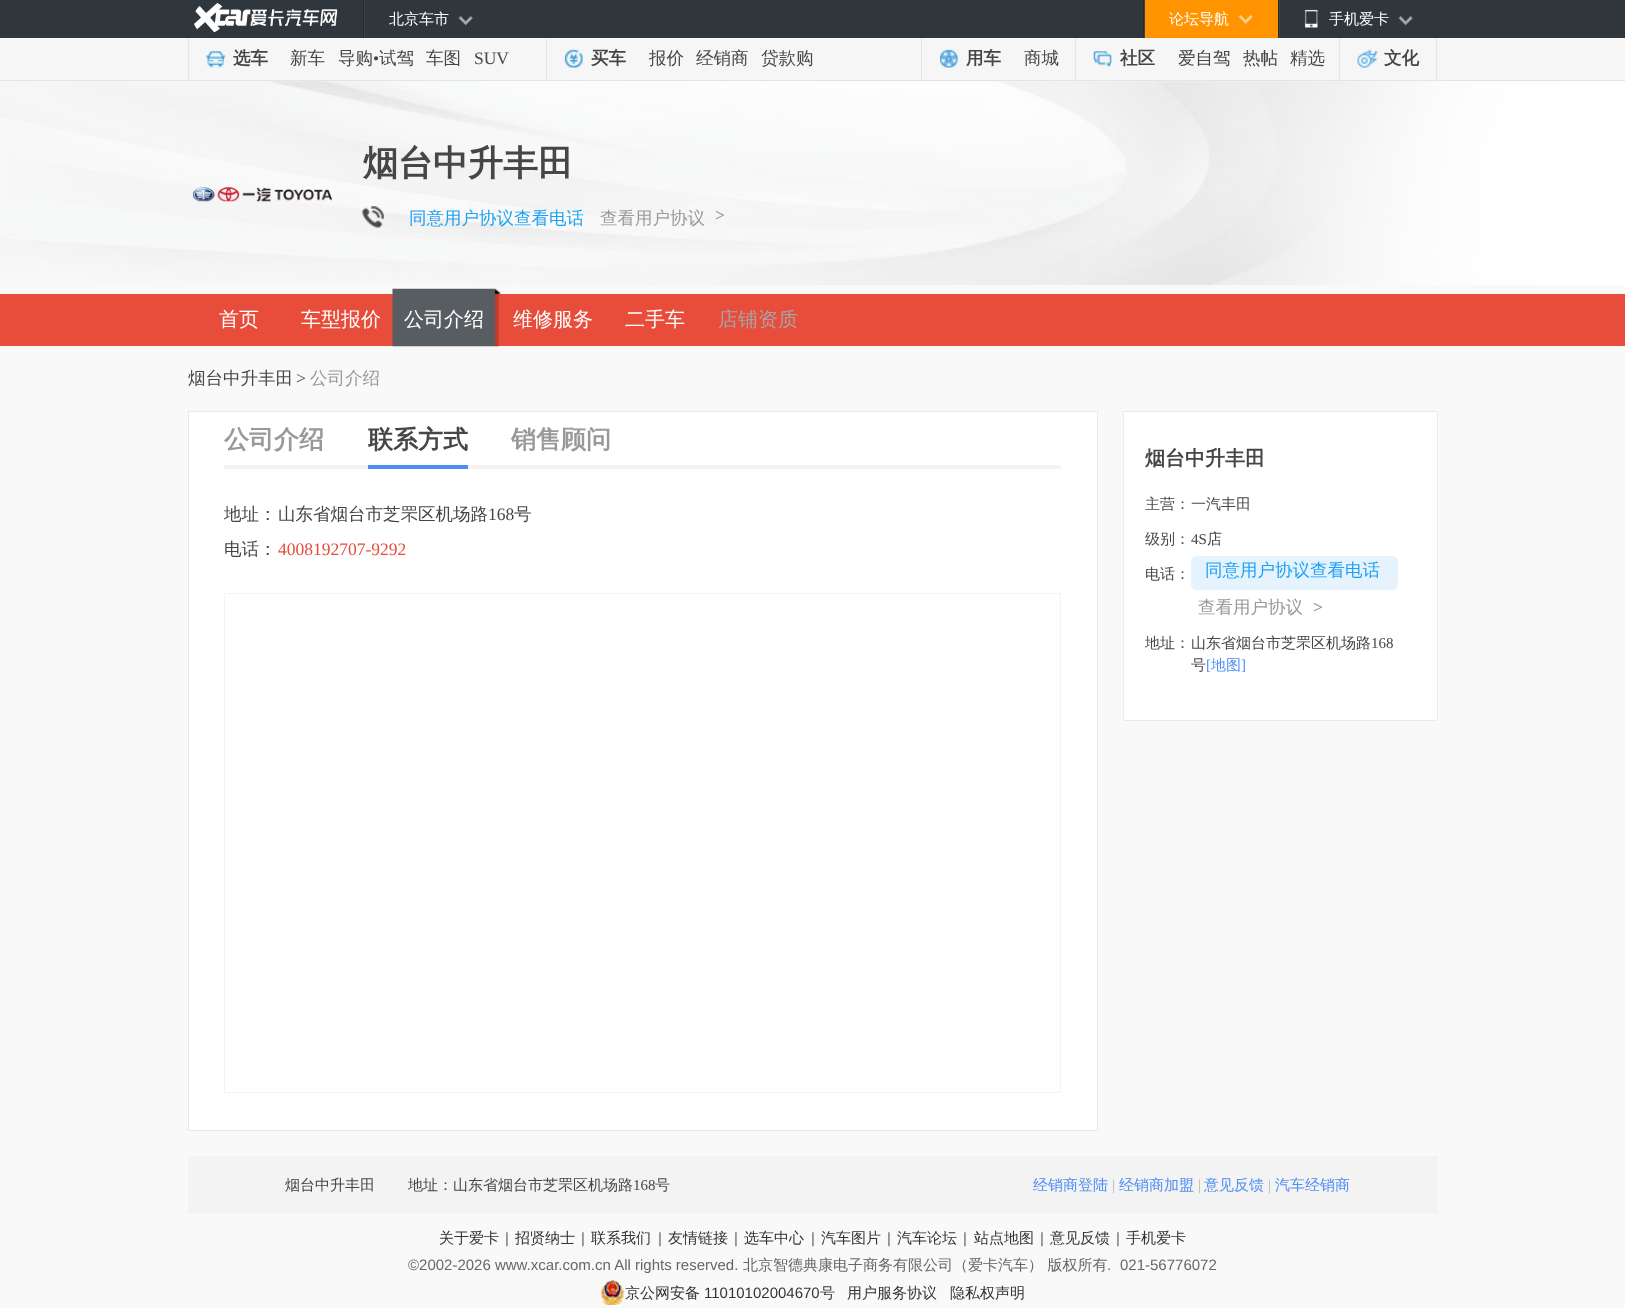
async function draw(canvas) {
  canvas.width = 1625;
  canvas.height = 1308;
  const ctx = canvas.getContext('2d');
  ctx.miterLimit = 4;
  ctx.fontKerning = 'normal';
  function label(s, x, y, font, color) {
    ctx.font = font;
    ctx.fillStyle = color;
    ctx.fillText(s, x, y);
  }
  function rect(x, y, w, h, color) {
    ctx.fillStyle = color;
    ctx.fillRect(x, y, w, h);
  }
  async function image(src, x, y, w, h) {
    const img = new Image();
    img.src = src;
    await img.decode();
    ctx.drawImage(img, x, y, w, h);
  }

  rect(0, 0, 1625, 1308, '#f9f9f9');
  rect(0, 0, 1625, 38, '#2f363c');
  await image('assets/img1.png', 194, 3, 144, 30);
  rect(363, 0, 1, 38, '#242b31');
  await image('assets/img2.png', 458, 16, 15, 10);
  rect(364, 0, 1, 38, '#3c4349');
  label('北京车市', 389, 24, '500 15px WenQuanYi Zen Hei', '#fff');
  rect(1143, 0, 1, 38, '#242b31');
  rect(1145, 0, 133, 38, '#ff9400');
  await image('assets/img3.png', 1238, 14, 15, 10);
  rect(1144, 0, 1, 38, '#3c4349');
  label('论坛导航', 1169, 24, '500 15px WenQuanYi Zen Hei', '#fff');
  rect(1278, 0, 1, 38, '#242b31');
  await image('assets/img2.png', 1398, 16, 15, 10);
  rect(1279, 0, 1, 38, '#3c4349');
  await image('assets/img4.png', 1304, 9, 14, 19);
  label('手机爱卡', 1329, 24, '500 15px WenQuanYi Zen Hei', '#fff');
  rect(0, 38, 1625, 42, '#f6f6f6');
  rect(0, 80, 1625, 1, '#e4e4e4');
  rect(188, 38, 1, 42, '#e5e5e5');
  await image('assets/img5.png', 206, 51, 20, 17);
  label('选车', 233, 64, 'bold 17.5px WenQuanYi Zen Hei', '#464646');
  label('新车', 290, 64, '500 17.5px WenQuanYi Zen Hei', '#464646');
  label('导购', 338, 64, '500 17.5px WenQuanYi Zen Hei', '#464646');
  label('•', 373, 64, '17.5px Liberation Serif', '#464646');
  label('试驾', 379, 64, '500 17.5px WenQuanYi Zen Hei', '#464646');
  label('车图', 426, 64, '500 17.5px WenQuanYi Zen Hei', '#464646');
  label('SUV', 474, 64, '17.5px Liberation Serif', '#464646');
  rect(546, 38, 1, 42, '#e5e5e5');
  await image('assets/img6.png', 564, 49, 19, 19);
  label('买车', 591, 64, 'bold 17.5px WenQuanYi Zen Hei', '#464646');
  label('报价', 649, 64, '500 17.5px WenQuanYi Zen Hei', '#464646');
  label('经销商', 696, 64, '500 17.5px WenQuanYi Zen Hei', '#464646');
  label('贷款购', 761, 64, '500 17.5px WenQuanYi Zen Hei', '#464646');
  rect(921, 38, 1, 42, '#e5e5e5');
  await image('assets/img7.png', 939, 49, 19, 19);
  label('用车', 966, 64, 'bold 17.5px WenQuanYi Zen Hei', '#464646');
  label('商城', 1024, 64, '500 17.5px WenQuanYi Zen Hei', '#464646');
  rect(1075, 38, 1, 42, '#e5e5e5');
  await image('assets/img8.png', 1093, 51, 19, 16);
  label('社区', 1120, 64, 'bold 17.5px WenQuanYi Zen Hei', '#464646');
  label('爱自驾', 1178, 64, '500 17.5px WenQuanYi Zen Hei', '#464646');
  label('热帖', 1243, 64, '500 17.5px WenQuanYi Zen Hei', '#464646');
  label('精选', 1290, 64, '500 17.5px WenQuanYi Zen Hei', '#464646');
  rect(1339, 38, 1, 42, '#e5e5e5');
  rect(1436, 38, 1, 42, '#e5e5e5');
  await image('assets/img9.png', 1357, 49, 21, 19);
  label('文化', 1384, 64, 'bold 17.5px WenQuanYi Zen Hei', '#464646');
  await image('assets/img10.png', 0, 81, 1625, 204);
  await image('assets/img11.png', 193, 187, 139, 15);
  label('烟台中升丰田', 363, 175, 'bold 35px WenQuanYi Zen Hei', '#464646');
  await image('assets/img12.png', 362, 206, 22, 22);
  label('同意用户协议查看电话', 409, 224, '500 17.5px WenQuanYi Zen Hei', '#1da1f2');
  label('查看用户协议', 600, 224, '500 17.5px WenQuanYi Zen Hei', '#999');
  label('>', 715, 221, 'bold 17.5px Liberation Serif', '#999');
  rect(0, 294, 1625, 52, '#e84d3b');
  label('首页', 219, 326, '500 20px WenQuanYi Zen Hei', '#fff');
  label('车型报价', 301, 326, '500 20px WenQuanYi Zen Hei', '#fff');
  await image('assets/img13.png', 392, 288, 109, 59);
  label('公司介绍', 404, 326, '500 20px WenQuanYi Zen Hei', '#fff');
  label('维修服务', 513, 326, '500 20px WenQuanYi Zen Hei', '#fff');
  label('二手车', 625, 326, '500 20px WenQuanYi Zen Hei', '#fff');
  label('店铺资质', 718, 326, '500 20px WenQuanYi Zen Hei', '#a7a4a4');
  label('烟台中升丰田', 188, 384, '500 17.5px WenQuanYi Zen Hei', '#464646');
  label('>', 296, 384, '17.5px Liberation Serif', '#464646');
  label('公司介绍', 310, 384, '500 17.5px WenQuanYi Zen Hei', '#999');
  ctx.fillStyle = '#fff';
  ctx.beginPath();
  ctx.rect(188.5, 411.5, 909, 719);
  ctx.fill();
  ctx.strokeStyle = '#e9e9e9';
  ctx.stroke();
  rect(224, 465, 837, 4, '#f3f3f3');
  label('公司介绍', 224, 448, 'bold 25px WenQuanYi Zen Hei', '#999');
  rect(368, 465, 100, 4, '#4f8df5');
  ctx.save();
  ctx.beginPath();
  ctx.rect(368, 413, 100, 52);
  ctx.clip();
  label('联系方式', 368, 448, 'bold 25px WenQuanYi Zen Hei', '#464646');
  ctx.restore();
  label('销售顾问', 511, 448, 'bold 25px WenQuanYi Zen Hei', '#999');
  label('地址：', 224, 520, '500 17.5px WenQuanYi Zen Hei', '#464646');
  label('山东省烟台市芝罘区机场路', 278, 520, '500 17.5px WenQuanYi Zen Hei', '#464646');
  label('168', 488, 520, '17.5px Liberation Serif', '#464646');
  label('号', 514, 520, '500 17.5px WenQuanYi Zen Hei', '#464646');
  label('电话：', 224, 555, '500 17.5px WenQuanYi Zen Hei', '#464646');
  label('4008192707-9292', 278, 555, '17.5px Liberation Serif', '#e74c3c');
  ctx.strokeStyle = '#f3f3f3';
  ctx.strokeRect(224.5, 593.5, 836, 499);
  ctx.fillStyle = '#fff';
  ctx.beginPath();
  ctx.rect(1123.5, 411.5, 314, 309);
  ctx.fill();
  ctx.strokeStyle = '#ebebeb';
  ctx.stroke();
  label('烟台中升丰田', 1145, 465, 'bold 20px WenQuanYi Zen Hei', '#464646');
  label('主营：', 1145, 509, '500 15px WenQuanYi Zen Hei', '#464646');
  label('一汽丰田', 1191, 509, '500 15px WenQuanYi Zen Hei', '#464646');
  label('级别：', 1145, 544, '500 15px WenQuanYi Zen Hei', '#464646');
  label('4S', 1191, 544, '15px Liberation Serif', '#464646');
  label('店', 1207, 544, '500 15px WenQuanYi Zen Hei', '#464646');
  label('电话：', 1145, 579, '500 15px WenQuanYi Zen Hei', '#464646');
  ctx.fillStyle = '#e5f3ff';
  ctx.beginPath();
  ctx.roundRect(1191.5, 556.5, 206, 33, 4.5);
  ctx.fill();
  ctx.strokeStyle = '#e5f3ff';
  ctx.stroke();
  label('同意用户协议查看电话', 1205, 576, '500 17.5px WenQuanYi Zen Hei', '#1da1f2');
  label('查看用户协议', 1198, 613, '500 17.5px WenQuanYi Zen Hei', '#999');
  label('>', 1313, 613, 'bold 17.5px Liberation Serif', '#999');
  label('地址：', 1145, 648, '500 15px WenQuanYi Zen Hei', '#464646');
  label('山东省烟台市芝罘区机场路', 1191, 648, '500 15px WenQuanYi Zen Hei', '#464646');
  label('168', 1371, 648, '15px Liberation Serif', '#464646');
  label('号', 1191, 670, '500 15px WenQuanYi Zen Hei', '#464646');
  label('[', 1206, 670, '15px Liberation Serif', '#4f8df5');
  label('地图', 1211, 670, '500 15px WenQuanYi Zen Hei', '#4f8df5');
  label(']', 1241, 670, '15px Liberation Serif', '#4f8df5');
  rect(188, 1156, 1250, 58, '#f3f3f3');
  label('烟台中升丰田', 285, 1190, '500 15px WenQuanYi Zen Hei', '#464646');
  label('地址：山东省烟台市芝罘区机场路', 408, 1190, '500 15px WenQuanYi Zen Hei', '#464646');
  label('168', 633, 1190, '15px Liberation Serif', '#464646');
  label('号', 655, 1190, '500 15px WenQuanYi Zen Hei', '#464646');
  label('经销商登陆', 1033, 1190, '500 15px WenQuanYi Zen Hei', '#4f8df5');
  label('|', 1112, 1190, '15px Liberation Serif', '#b5b5b5');
  label('经销商加盟', 1119, 1190, '500 15px WenQuanYi Zen Hei', '#4f8df5');
  label('|', 1198, 1190, '15px Liberation Serif', '#b5b5b5');
  label('意见反馈', 1204, 1190, '500 15px WenQuanYi Zen Hei', '#4f8df5');
  label('|', 1268, 1190, '15px Liberation Serif', '#b5b5b5');
  label('汽车经销商', 1275, 1190, '500 15px WenQuanYi Zen Hei', '#4f8df5');
  label('关于爱卡', 439, 1243, '500 15px WenQuanYi Zen Hei', '#333');
  label('|', 505, 1243, '15px Liberation Sans', '#666');
  label('招贤纳士', 515, 1243, '500 15px WenQuanYi Zen Hei', '#333');
  label('|', 581, 1243, '15px Liberation Sans', '#666');
  label('联系我们', 591, 1243, '500 15px WenQuanYi Zen Hei', '#333');
  label('|', 658, 1243, '15px Liberation Sans', '#666');
  label('友情链接', 668, 1243, '500 15px WenQuanYi Zen Hei', '#333');
  label('|', 734, 1243, '15px Liberation Sans', '#666');
  label('选车中心', 744, 1243, '500 15px WenQuanYi Zen Hei', '#333');
  label('|', 811, 1243, '15px Liberation Sans', '#666');
  label('汽车图片', 821, 1243, '500 15px WenQuanYi Zen Hei', '#333');
  label('|', 887, 1243, '15px Liberation Sans', '#666');
  label('汽车论坛', 897, 1243, '500 15px WenQuanYi Zen Hei', '#333');
  label('|', 963, 1243, '15px Liberation Sans', '#666');
  label('站点地图', 974, 1243, '500 15px WenQuanYi Zen Hei', '#333');
  label('|', 1040, 1243, '15px Liberation Sans', '#666');
  label('意见反馈', 1050, 1243, '500 15px WenQuanYi Zen Hei', '#333');
  label('|', 1116, 1243, '15px Liberation Sans', '#666');
  label('手机爱卡', 1126, 1243, '500 15px WenQuanYi Zen Hei', '#333');
  label('©2002-2026 www.xcar.com.cn All rights reserved.', 408, 1270, '15px Liberation Sans', '#666');
  label('北京智德典康电子商务有限公司（爱卡汽车） 版权所有', 743, 1270, '500 15px WenQuanYi Zen Hei', '#666');
  label('.', 1107, 1270, '15px Liberation Sans', '#666');
  label('021-56776072', 1120, 1270, '15px Liberation Sans', '#666');
  await image('assets/img14.png', 601, 1280, 23, 25);
  label('京公网安备', 625, 1298, '500 15px WenQuanYi Zen Hei', '#333');
  label('11010102004670', 704, 1298, '15px Liberation Sans', '#333');
  label('号', 820, 1298, '500 15px WenQuanYi Zen Hei', '#333');
  label('用户服务协议', 847, 1298, '500 15px WenQuanYi Zen Hei', '#333');
  label('隐私权声明', 950, 1298, '500 15px WenQuanYi Zen Hei', '#333');
}

draw(document.querySelector('canvas'));
